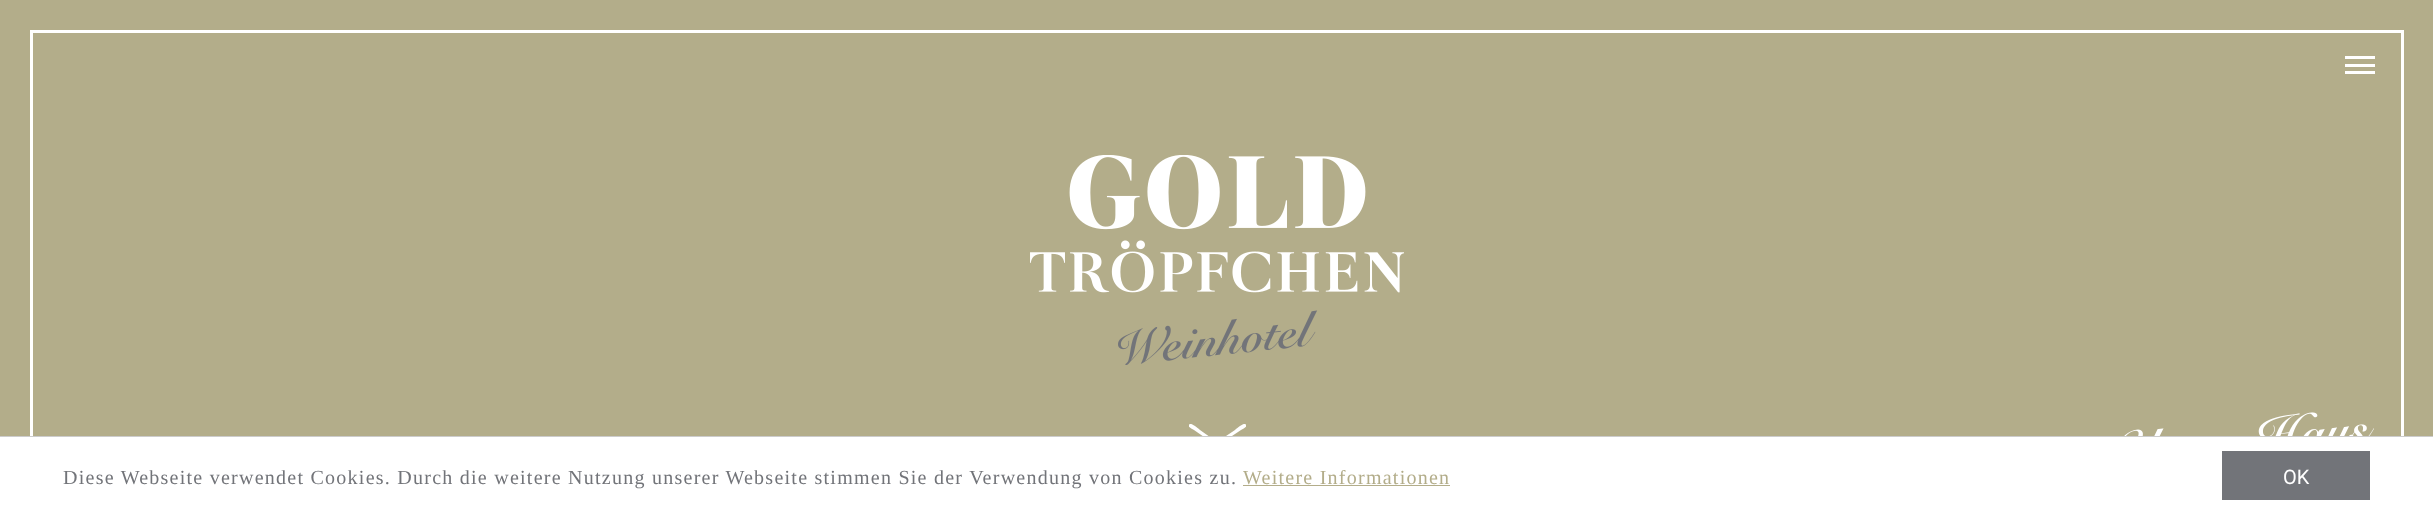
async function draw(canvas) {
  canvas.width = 2433;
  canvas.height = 520;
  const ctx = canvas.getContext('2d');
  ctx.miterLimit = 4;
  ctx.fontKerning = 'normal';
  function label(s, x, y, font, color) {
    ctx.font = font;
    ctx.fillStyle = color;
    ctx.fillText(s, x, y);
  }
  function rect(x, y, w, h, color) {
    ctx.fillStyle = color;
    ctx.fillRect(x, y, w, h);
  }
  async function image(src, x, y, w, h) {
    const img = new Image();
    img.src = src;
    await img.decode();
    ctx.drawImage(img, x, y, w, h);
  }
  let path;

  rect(0, 0, 2433, 520, '#b3ad8a');
  rect(30, 30, 3, 406, '#fff');
  rect(30, 30, 2374, 3, '#fff');
  rect(2401, 30, 3, 406, '#fff');
  rect(2345, 71, 30, 3, '#fff');
  rect(2345, 56, 30, 3, '#fff');
  rect(2345, 64, 30, 3, '#fff');
  await image('assets/img1.png', 1030, 155, 374, 210);
  ctx.save();
  ctx.beginPath();
  ctx.rect(1189, 424, 57, 22);
  ctx.clip();
  path = new Path2D('M1217 446L1194 430C1191 428 1186 426 1190 424C1192 423 1199 429 1200 430L1217 442L1235 430C1236 429 1243 423 1245 424C1249 426 1244 428 1241 430Z');
  ctx.fill(path);
  ctx.restore();
  await image('assets/img2.png', 2124, 412, 250, 24);
  rect(0, 437, 2433, 83, '#fff');
  rect(0, 436, 2433, 1, '#ccc');
  ctx.letterSpacing = '1.25px';
  label('Diese Webseite verwendet Cookies. Durch die weitere Nutzung unserer Webseite stimmen Sie der Verwendung von Cookies zu.', 63, 484, '20px Liberation Serif', '#727479');
  label('Weitere Informationen', 1243, 484, '20px Liberation Serif', '#b3ad8a');
  rect(1243, 485, 207, 1, '#b3ad8a');
  rect(2222, 451, 148, 49, '#727479');
  ctx.letterSpacing = '0px';
  label('OK', 2283, 484, '20px Roboto', '#fff');
}

draw(document.querySelector('canvas'));
